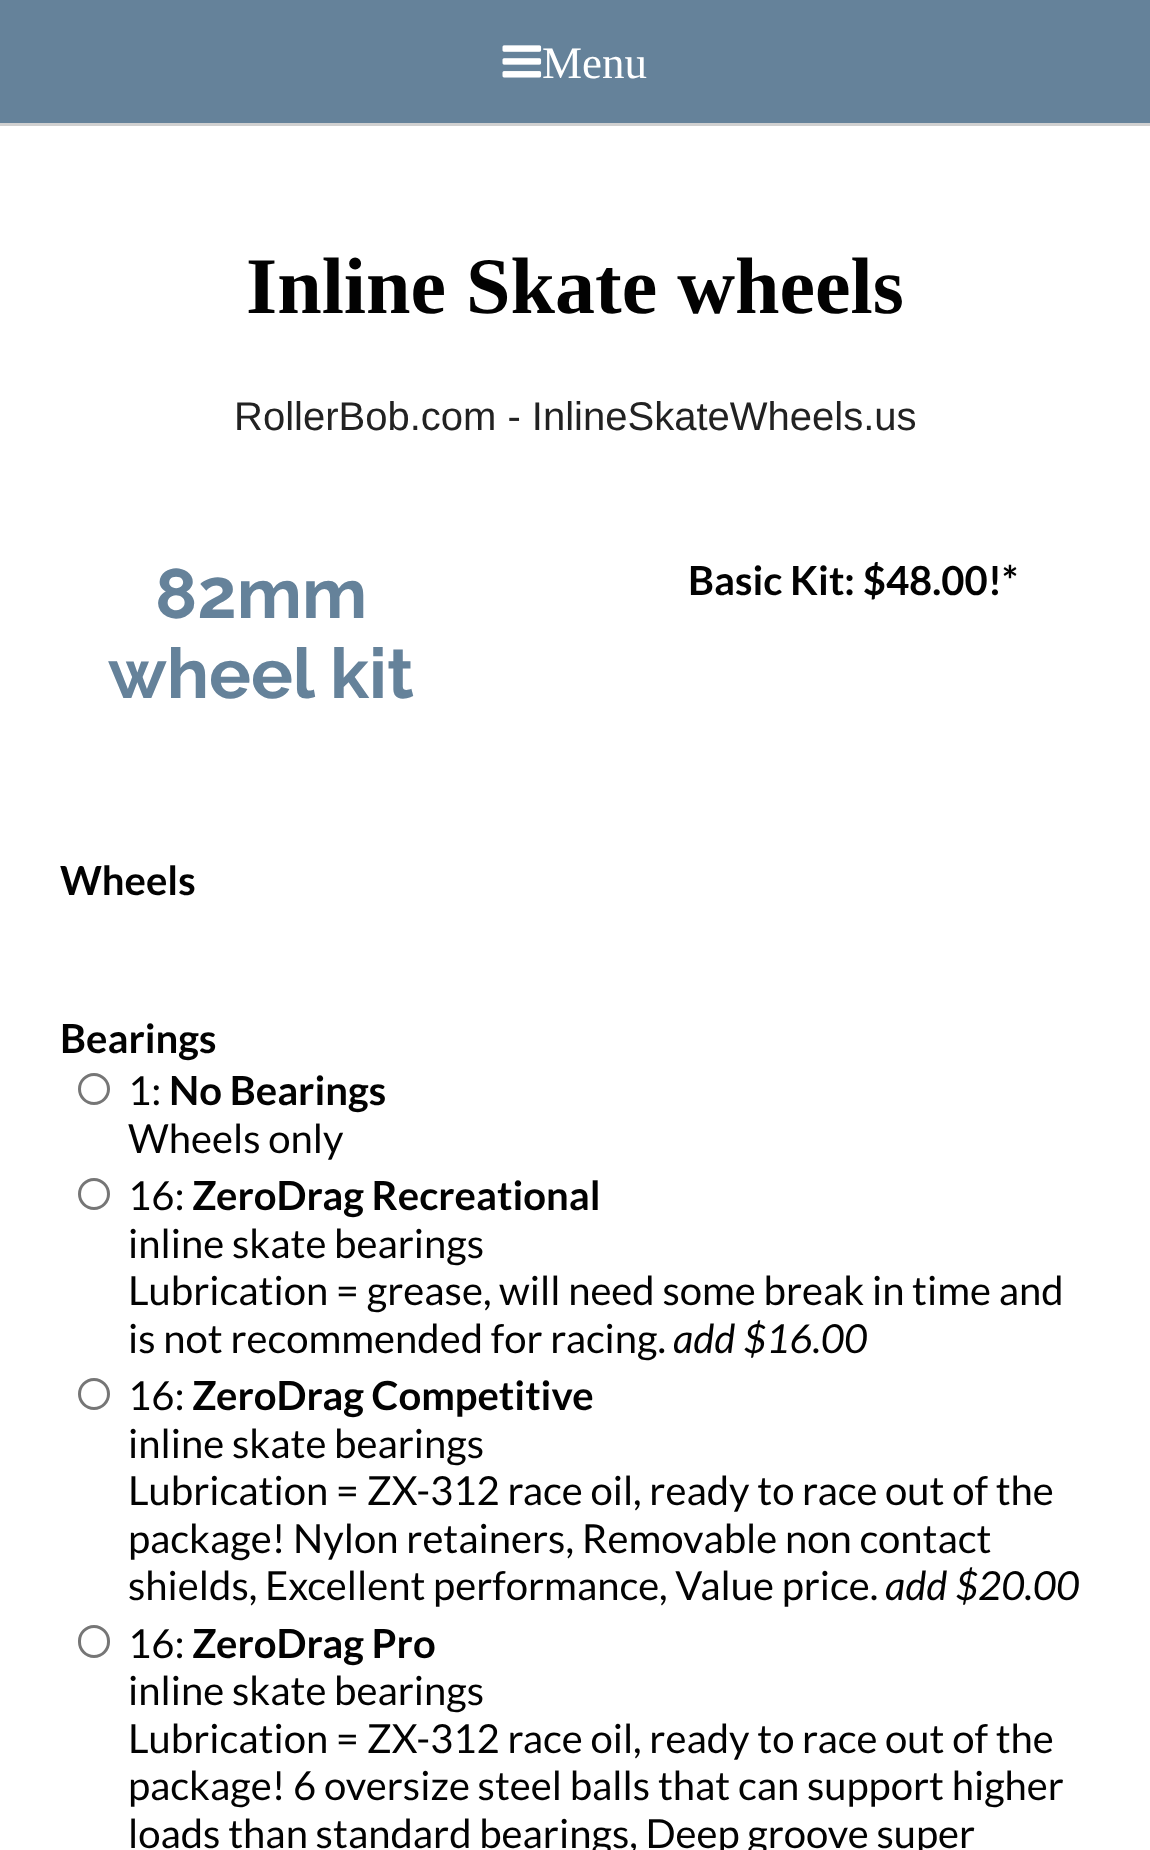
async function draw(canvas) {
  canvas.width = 1150;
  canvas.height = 1850;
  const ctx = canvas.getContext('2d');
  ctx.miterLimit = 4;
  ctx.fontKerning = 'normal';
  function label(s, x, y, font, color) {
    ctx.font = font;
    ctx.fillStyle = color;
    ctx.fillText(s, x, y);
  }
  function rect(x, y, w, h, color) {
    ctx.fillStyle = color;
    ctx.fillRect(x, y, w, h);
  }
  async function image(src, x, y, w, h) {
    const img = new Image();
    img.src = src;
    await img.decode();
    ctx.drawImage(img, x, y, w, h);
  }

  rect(0, 0, 1150, 1850, '#fff');
  rect(0, 0, 1150, 123, '#65829a');
  rect(0, 123, 1150, 3, '#d0d0d0');
  await image('assets/img1.png', 502, 45, 40, 33);
  label('Menu', 542, 78, '45px Liberation Serif', '#fff');
  label('Inline Skate wheels', 246, 313, 'bold 80px Liberation Serif', '#020202');
  label('RollerBob.com - InlineSkateWheels.us', 234, 430, '40px Liberation Sans', '#222');
  label('82mm', 155, 618, 'bold 70px Raleway', '#65829a');
  label('wheel kit', 108, 698, 'bold 70px Raleway', '#65829a');
  label('Basic Kit: $48.00!*', 688, 595, 'bold 40px Lato', '#020202');
  label('Wheels', 60, 895, 'bold 40px Lato', '#020202');
  label('Bearings', 60, 1053, 'bold 40px Lato', '#020202');
  ctx.beginPath();
  ctx.arc(94, 1089, 14.5, 0, 2 * Math.PI);
  ctx.strokeStyle = '#767676';
  ctx.lineWidth = 3;
  ctx.stroke();
  label('1:', 128, 1105, '40px Lato', '#020202');
  label('No Bearings', 169, 1105, 'bold 40px Lato', '#020202');
  label('Wheels only', 128, 1153, '40px Lato', '#020202');
  ctx.beginPath();
  ctx.arc(94, 1194, 14.5, 0, 2 * Math.PI);
  ctx.stroke();
  label('16:', 128, 1210, '40px Lato', '#020202');
  label('ZeroDrag Recreational', 192, 1210, 'bold 40px Lato', '#020202');
  label('inline skate bearings', 128, 1258, '40px Lato', '#020202');
  label('Lubrication = grease, will need some break in time and', 128, 1305, '40px Lato', '#020202');
  label('is not recommended for racing.', 128, 1353, '40px Lato', '#020202');
  label('add $16.00', 673, 1353, 'italic 40px Lato', '#020202');
  ctx.beginPath();
  ctx.arc(94, 1394, 14.5, 0, 2 * Math.PI);
  ctx.stroke();
  label('16:', 128, 1410, '40px Lato', '#020202');
  label('ZeroDrag Competitive', 192, 1410, 'bold 40px Lato', '#020202');
  label('inline skate bearings', 128, 1458, '40px Lato', '#020202');
  label('Lubrication = ZX-312 race oil, ready to race out of the', 128, 1505, '40px Lato', '#020202');
  label('package! Nylon retainers, Removable non contact', 128, 1553, '40px Lato', '#020202');
  label('shields, Excellent performance, Value price.', 128, 1600, '40px Lato', '#020202');
  label('add $20.00', 885, 1600, 'italic 40px Lato', '#020202');
  ctx.beginPath();
  ctx.roundRect(79.5, 1626.5, 29, 30, 14.5);
  ctx.stroke();
  label('16:', 128, 1658, '40px Lato', '#020202');
  label('ZeroDrag Pro', 192, 1658, 'bold 40px Lato', '#020202');
  label('inline skate bearings', 128, 1705, '40px Lato', '#020202');
  label('Lubrication = ZX-312 race oil, ready to race out of the', 128, 1753, '40px Lato', '#020202');
  label('package! 6 oversize steel balls that can support higher', 128, 1800, '40px Lato', '#020202');
  label('loads than standard bearings, Deep groove super', 128, 1848, '40px Lato', '#020202');
}

draw(document.querySelector('canvas'));
